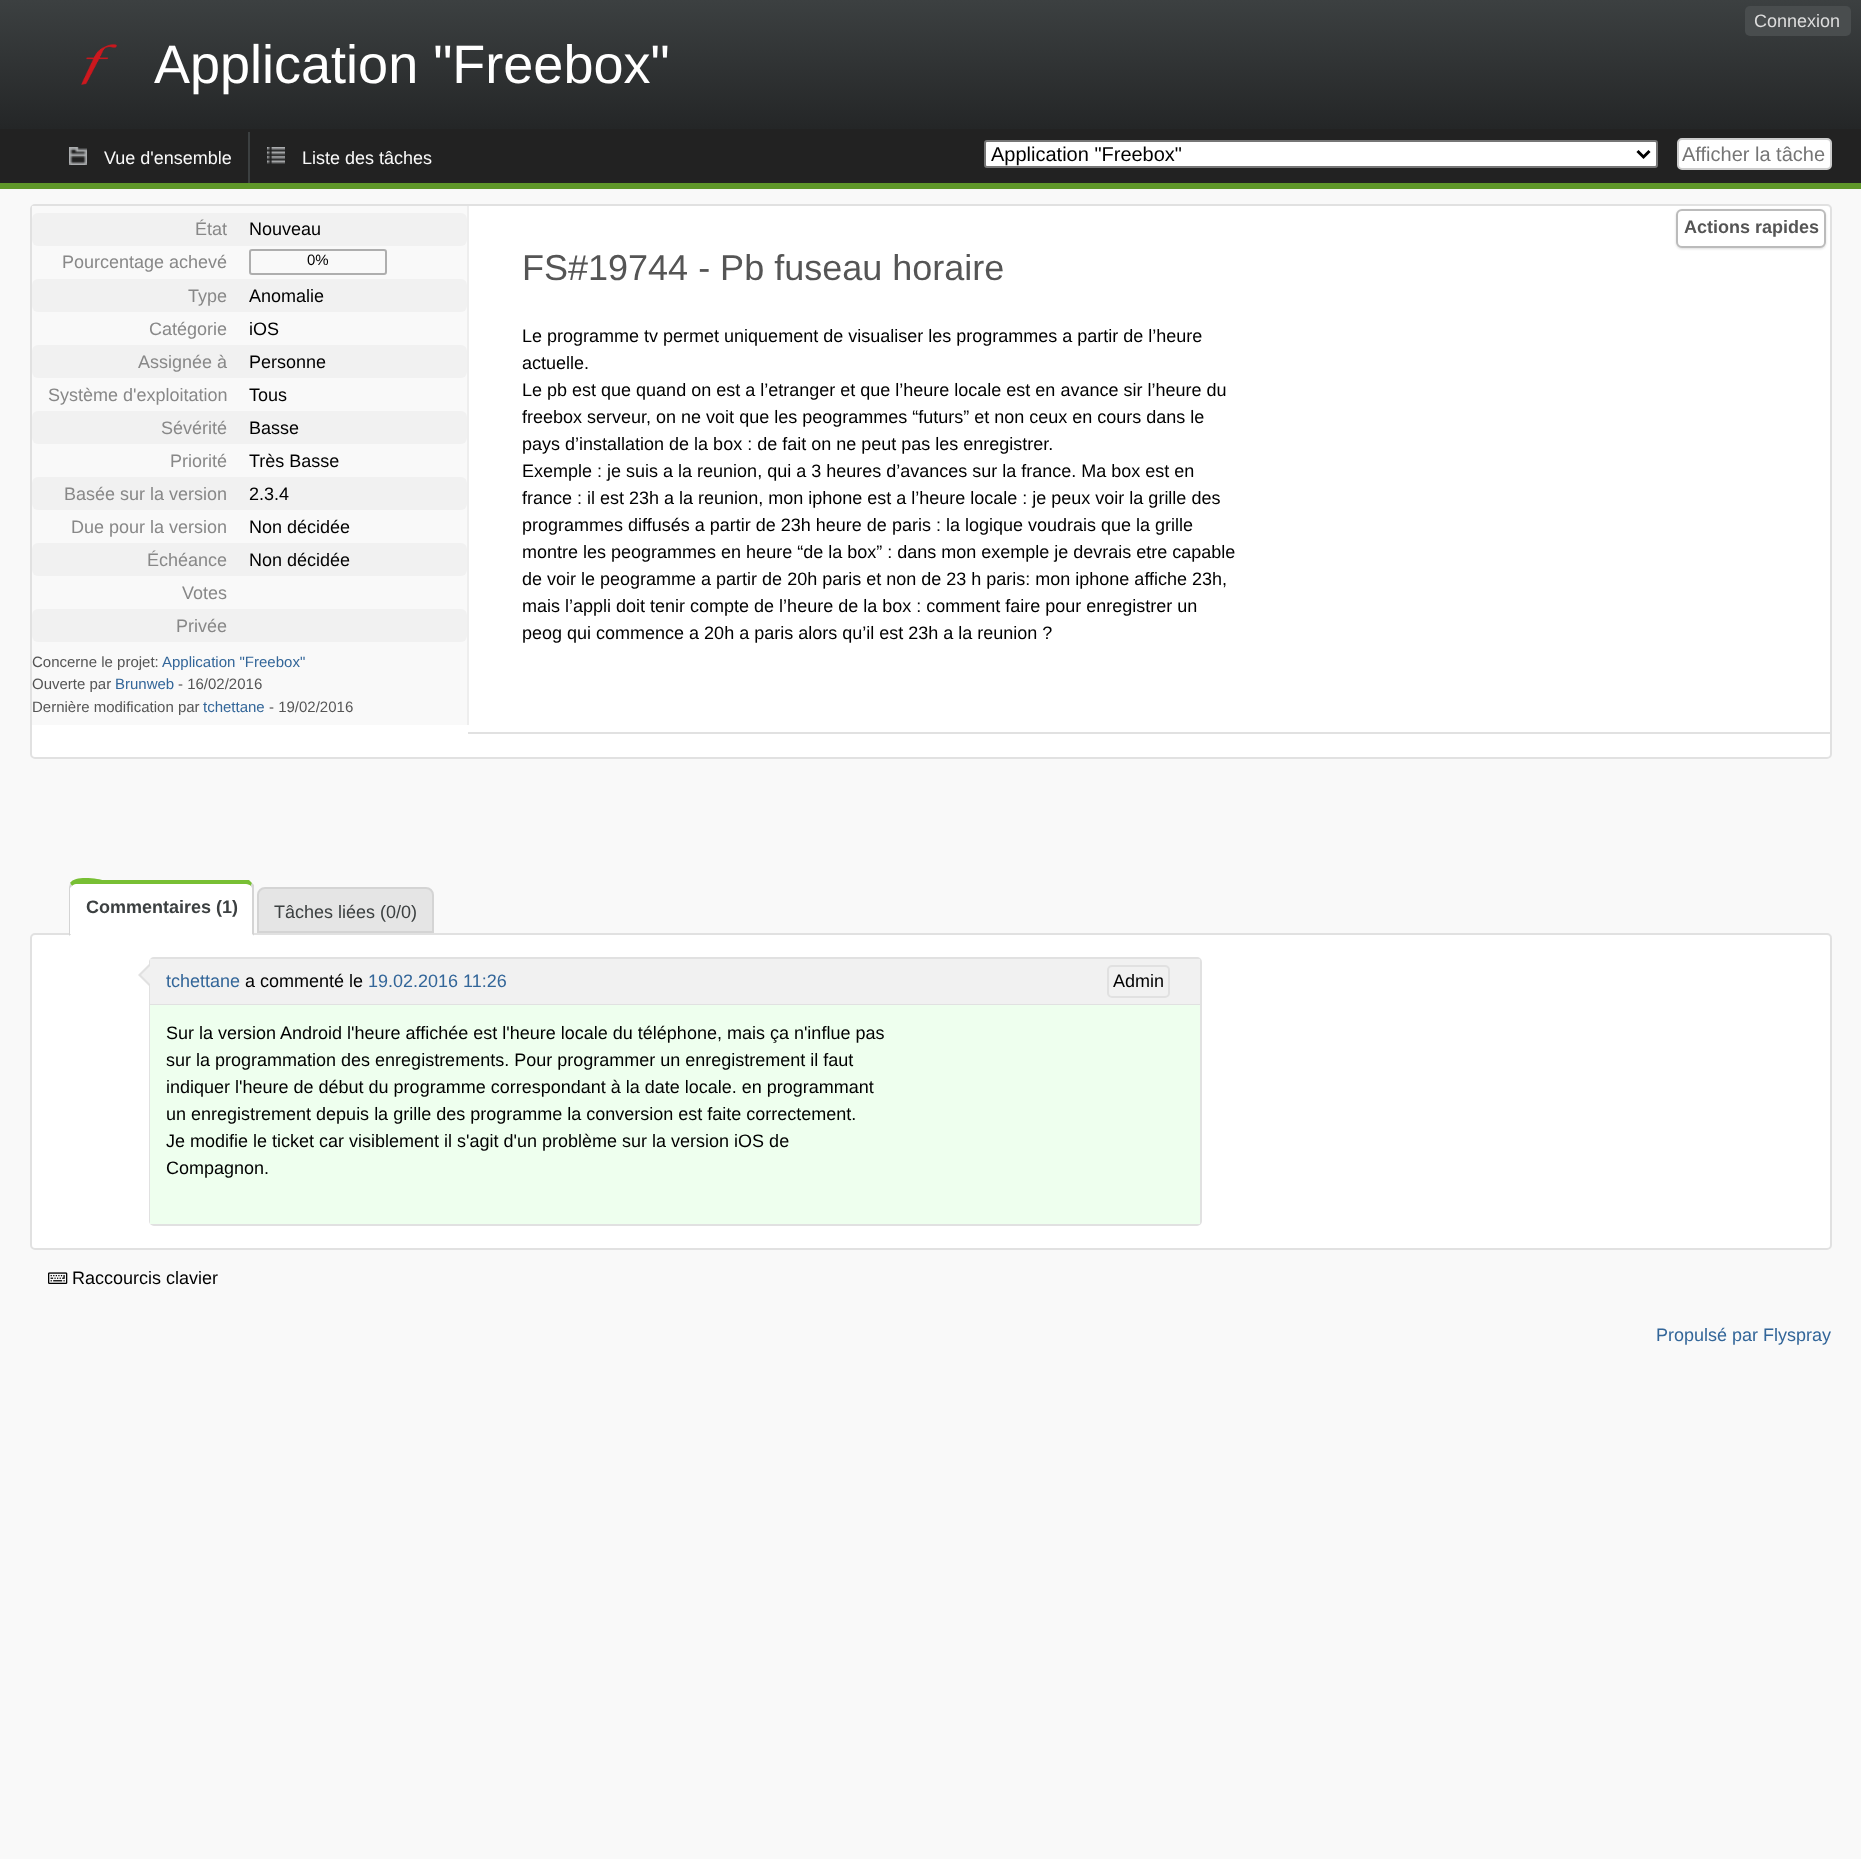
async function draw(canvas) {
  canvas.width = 1861;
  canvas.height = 1859;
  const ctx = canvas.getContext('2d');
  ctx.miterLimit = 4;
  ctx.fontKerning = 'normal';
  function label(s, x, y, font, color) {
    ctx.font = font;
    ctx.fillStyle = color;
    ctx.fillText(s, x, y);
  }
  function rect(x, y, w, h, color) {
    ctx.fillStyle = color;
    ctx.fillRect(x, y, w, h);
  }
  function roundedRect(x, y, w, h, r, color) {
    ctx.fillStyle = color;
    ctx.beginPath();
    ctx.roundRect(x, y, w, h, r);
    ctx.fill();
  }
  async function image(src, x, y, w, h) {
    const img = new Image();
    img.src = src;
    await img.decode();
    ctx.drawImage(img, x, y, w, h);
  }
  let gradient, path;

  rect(0, 0, 1861, 1859, '#f9f9f9');
  gradient = ctx.createLinearGradient(931, 0, 931, 129);
  gradient.addColorStop(0, '#3c4041');
  gradient.addColorStop(1, '#242627');
  ctx.fillStyle = gradient;
  ctx.fillRect(0, 0, 1861, 129);
  roundedRect(1745, 6, 106, 30, 5, '#494d4e');
  label('Connexion', 1754, 27, '18px Liberation Sans', '#ddd');
  await image('assets/img1.png', 81, 44, 36, 41);
  label('Application "Freebox"', 154, 83, '54px Liberation Sans', '#fff');
  rect(0, 129, 1861, 54, '#222');
  rect(0, 183, 1861, 6, '#5f9729');
  await image('assets/img2.png', 69, 147, 18, 18);
  label('Vue d\'ensemble', 104, 164, '18px Liberation Sans', '#f9f9f9');
  await image('assets/img3.png', 267, 147, 18, 17);
  rect(248, 132, 2, 51, '#3c4041');
  label('Liste des tâches', 302, 164, '18px Liberation Sans', '#f9f9f9');
  ctx.fillStyle = '#fff';
  ctx.beginPath();
  ctx.roundRect(985, 141, 672, 26, 2);
  ctx.fill();
  ctx.strokeStyle = '#767676';
  ctx.lineWidth = 2;
  ctx.stroke();
  path = new Path2D('M1637.5 151L1643.5 157L1649.5 151');
  ctx.strokeStyle = '#000';
  ctx.lineWidth = 3;
  ctx.stroke(path);
  label('Application "Freebox"', 991, 161, '20px Liberation Sans', '#000');
  ctx.fillStyle = '#fff';
  ctx.beginPath();
  ctx.roundRect(1678, 139, 153, 30, 4);
  ctx.fill();
  ctx.strokeStyle = '#ccc';
  ctx.lineWidth = 2;
  ctx.stroke();
  label('Afficher la tâche', 1682, 161, '20px Liberation Sans', '#757575');
  ctx.fillStyle = '#fff';
  ctx.beginPath();
  ctx.roundRect(31, 205, 1800, 553, 4);
  ctx.fill();
  ctx.strokeStyle = '#e1e1e1';
  ctx.stroke();
  rect(32, 206, 435, 519, '#f9f9f9');
  rect(467, 206, 2, 519, '#eee');
  roundedRect(32, 213, 435, 33, 6, '#f1f1f1');
  label('État', 195, 235, '18px Liberation Sans', '#888');
  label('Nouveau', 249, 235, '18px Liberation Sans', '#000');
  label('Pourcentage achevé', 62, 268, '18px Liberation Sans', '#888');
  ctx.beginPath();
  ctx.roundRect(250, 250, 136, 24, 2);
  ctx.strokeStyle = '#aeaeae';
  ctx.stroke();
  label('0%', 307, 265, '15px Liberation Sans', '#000');
  roundedRect(32, 279, 435, 33, 6, '#f1f1f1');
  label('Type', 188, 302, '18px Liberation Sans', '#888');
  label('Anomalie', 249, 302, '18px Liberation Sans', '#000');
  label('Catégorie', 149, 335, '18px Liberation Sans', '#888');
  label('iOS', 249, 335, '18px Liberation Sans', '#000');
  roundedRect(32, 345, 435, 33, 6, '#f1f1f1');
  label('Assignée à', 138, 368, '18px Liberation Sans', '#888');
  label('Personne', 249, 368, '18px Liberation Sans', '#000');
  label('Système d\'exploitation', 48, 401, '18px Liberation Sans', '#888');
  label('Tous', 249, 401, '18px Liberation Sans', '#000');
  roundedRect(32, 411, 435, 33, 6, '#f1f1f1');
  label('Sévérité', 161, 434, '18px Liberation Sans', '#888');
  label('Basse', 249, 434, '18px Liberation Sans', '#000');
  label('Priorité', 170, 467, '18px Liberation Sans', '#888');
  label('Très Basse', 249, 467, '18px Liberation Sans', '#000');
  roundedRect(32, 477, 435, 33, 6, '#f1f1f1');
  label('Basée sur la version', 64, 500, '18px Liberation Sans', '#888');
  label('2.3.4', 249, 500, '18px Liberation Sans', '#000');
  label('Due pour la version', 71, 533, '18px Liberation Sans', '#888');
  label('Non décidée', 249, 533, '18px Liberation Sans', '#000');
  roundedRect(32, 543, 435, 33, 6, '#f1f1f1');
  label('Échéance', 147, 566, '18px Liberation Sans', '#888');
  label('Non décidée', 249, 566, '18px Liberation Sans', '#000');
  label('Votes', 182, 599, '18px Liberation Sans', '#888');
  roundedRect(32, 609, 435, 33, 6, '#f1f1f1');
  label('Privée', 176, 632, '18px Liberation Sans', '#888');
  label('Concerne le projet:', 32, 667, '15px Liberation Sans', '#555');
  label('Application "Freebox"', 162, 667, '15px Liberation Sans', '#369');
  label('Ouverte par', 32, 689, '15px Liberation Sans', '#555');
  label('Brunweb', 115, 689, '15px Liberation Sans', '#369');
  label('- 16/02/2016', 178, 689, '15px Liberation Sans', '#555');
  label('Dernière modification par', 32, 712, '15px Liberation Sans', '#555');
  label('tchettane', 203, 712, '15px Liberation Sans', '#369');
  label('- 19/02/2016', 269, 712, '15px Liberation Sans', '#555');
  label('FS#19744 - Pb fuseau horaire', 522, 280, '36px Liberation Sans', '#555');
  label('Le programme tv permet uniquement de visualiser les programmes a partir de l’heure', 522, 342, '18px Liberation Sans', '#000');
  label('actuelle.', 522, 369, '18px Liberation Sans', '#000');
  label('Le pb est que quand on est a l’etranger et que l’heure locale est en avance sir l’heure du', 522, 396, '18px Liberation Sans', '#000');
  label('freebox serveur, on ne voit que les peogrammes “futurs” et non ceux en cours dans le', 522, 423, '18px Liberation Sans', '#000');
  label('pays d’installation de la box : de fait on ne peut pas les enregistrer.', 522, 450, '18px Liberation Sans', '#000');
  label('Exemple : je suis a la reunion, qui a 3 heures d’avances sur la france. Ma box est en', 522, 477, '18px Liberation Sans', '#000');
  label('france : il est 23h a la reunion, mon iphone est a l’heure locale : je peux voir la grille des', 522, 504, '18px Liberation Sans', '#000');
  label('programmes diffusés a partir de 23h heure de paris : la logique voudrais que la grille', 522, 531, '18px Liberation Sans', '#000');
  label('montre les peogrammes en heure “de la box” : dans mon exemple je devrais etre capable', 522, 558, '18px Liberation Sans', '#000');
  label('de voir le peogramme a partir de 20h paris et non de 23 h paris: mon iphone affiche 23h,', 522, 585, '18px Liberation Sans', '#000');
  label('mais l’appli doit tenir compte de l’heure de la box : comment faire pour enregistrer un', 522, 612, '18px Liberation Sans', '#000');
  label('peog qui commence a 20h a paris alors qu’il est 23h a la reunion ?', 522, 639, '18px Liberation Sans', '#000');
  rect(468, 732, 1362, 2, '#e1e1e1');
  ctx.fillStyle = '#ddd';
  ctx.filter = 'blur(1px)';
  ctx.beginPath();
  ctx.roundRect(1676, 210, 150, 39, 6);
  ctx.fill();
  ctx.filter = 'none';
  ctx.fillStyle = '#fff';
  ctx.beginPath();
  ctx.roundRect(1677, 210, 148, 37, 5);
  ctx.fill();
  ctx.strokeStyle = '#bbb';
  ctx.stroke();
  label('Actions rapides', 1684, 233, 'bold 18px Liberation Sans', '#555');
  ctx.fillStyle = '#fff';
  ctx.beginPath();
  ctx.roundRect(31, 934, 1800, 315, 4);
  ctx.fill();
  ctx.strokeStyle = '#e1e1e1';
  ctx.stroke();
  path = new Path2D('M76 884H246C249 884 252 886 252 888V934H70V888C70 886 73 884 76 884Z');
  ctx.fill(path);
  ctx.fillStyle = '#78bf34';
  path = new Path2D('M76 884C74 884 73 885 72 886L70 883C76 874 102 880 103 880H249L252 883L251 886C250 885 248 884 246 884Z');
  ctx.fill(path);
  ctx.fillStyle = '#d4d4d4';
  path = new Path2D('M254 885V936L252 934V888L251 886L252 883Z');
  ctx.fill(path);
  ctx.fillStyle = '#fff';
  path = new Path2D('M254 936L252 934H71L69 936Z');
  ctx.fill(path);
  ctx.fillStyle = '#d4d4d4';
  path = new Path2D('M69 936L71 934H70V888L72 886L70 883C70 885 69 886 69 888Z');
  ctx.fill(path);
  label('Commentaires (1)', 86, 913, 'bold 18px Liberation Sans', '#3c4041');
  ctx.fillStyle = '#e5e5e5';
  ctx.beginPath();
  ctx.roundRect(258, 888, 175, 44, [7, 7, 0, 0]);
  ctx.fill();
  ctx.strokeStyle = '#d4d4d4';
  ctx.stroke();
  label('Tâches liées (0/0)', 274, 918, '18px Liberation Sans', '#3c4041');
  ctx.beginPath();
  ctx.roundRect(150, 958, 1051, 267, 4);
  ctx.strokeStyle = '#e1e1e1';
  ctx.stroke();
  ctx.fillStyle = '#e1e1e1';
  path = new Path2D('M150 963V987L138 975Z');
  ctx.fill(path);
  ctx.fillStyle = '#f1f1f1';
  path = new Path2D('M150 966V984L141 975Z');
  ctx.fill(path);
  rect(150, 959, 1050, 45, '#f1f1f1');
  rect(150, 1004, 1050, 1, '#e1e1e1');
  label('tchettane', 166, 987, '18px Liberation Sans', '#369');
  label('a commenté le', 245, 987, '18px Liberation Sans', '#000');
  label('19.02.2016 11:26', 368, 987, '18px Liberation Sans', '#369');
  ctx.beginPath();
  ctx.roundRect(1108, 966, 61, 31, 4);
  ctx.stroke();
  label('Admin', 1113, 987, '18px Liberation Sans', '#000');
  rect(150, 1005, 1050, 219, '#efe');
  label('Sur la version Android l\'heure affichée est l\'heure locale du téléphone, mais ça n\'influe pas', 166, 1039, '18px Liberation Sans', '#000');
  label('sur la programmation des enregistrements. Pour programmer un enregistrement il faut', 166, 1066, '18px Liberation Sans', '#000');
  label('indiquer l\'heure de début du programme correspondant à la date locale. en programmant', 166, 1093, '18px Liberation Sans', '#000');
  label('un enregistrement depuis la grille des programme la conversion est faite correctement.', 166, 1120, '18px Liberation Sans', '#000');
  label('Je modifie le ticket car visiblement il s\'agit d\'un problème sur la version iOS de', 166, 1147, '18px Liberation Sans', '#000');
  label('Compagnon.', 166, 1174, '18px Liberation Sans', '#000');
  await image('assets/img4.png', 48, 1272, 20, 12);
  label('Raccourcis clavier', 72, 1284, '18px Liberation Sans', '#000');
  label('Propulsé par Flyspray', 1656, 1341, '18px Liberation Sans', '#369');
}

draw(document.querySelector('canvas'));
